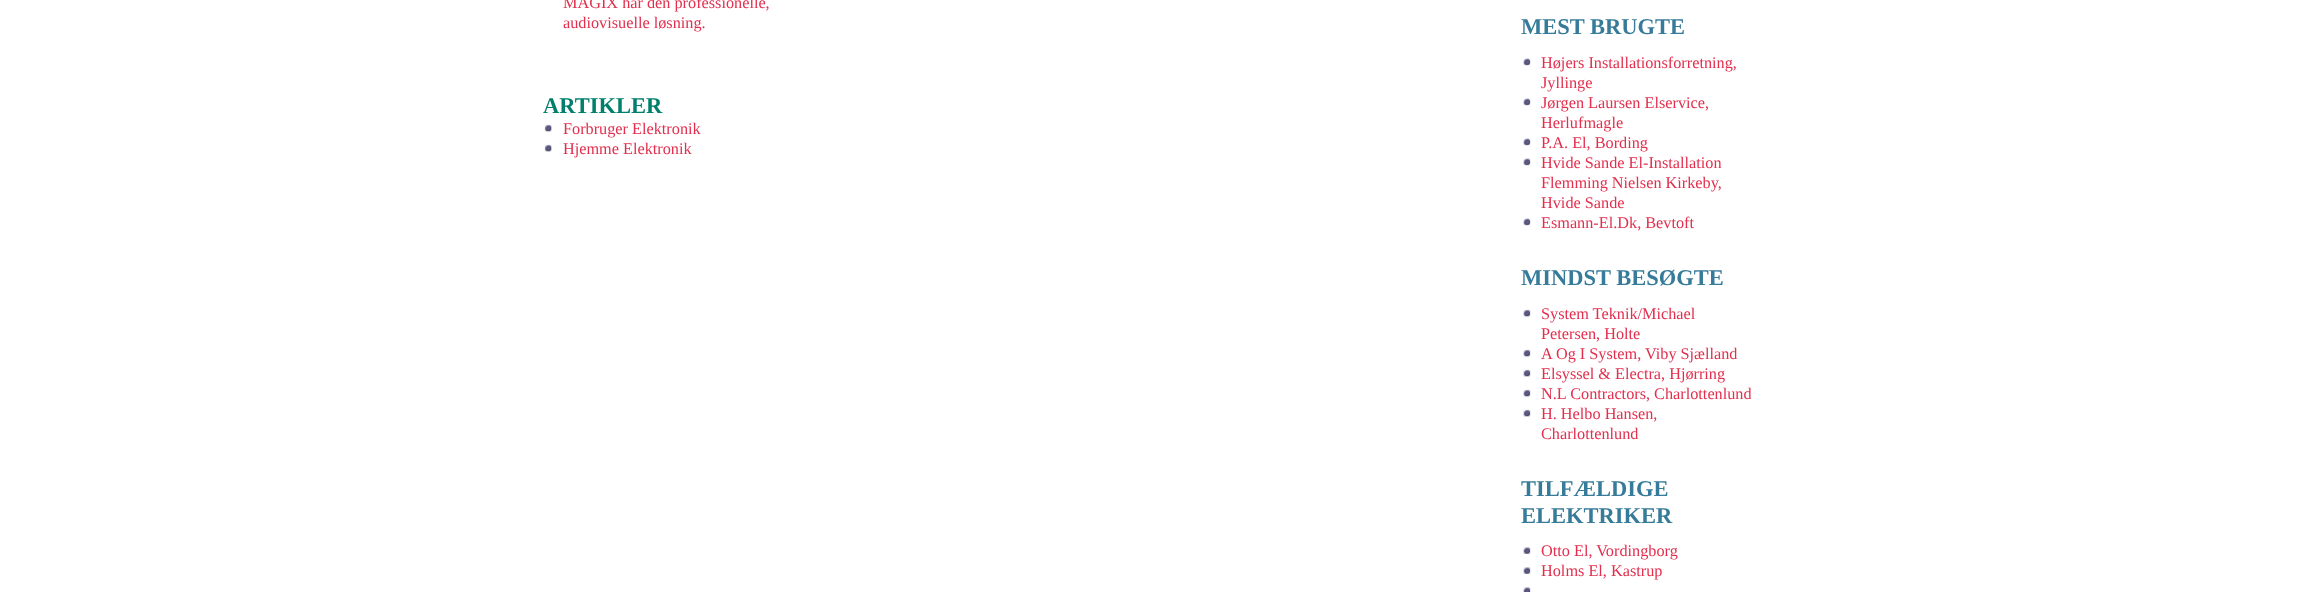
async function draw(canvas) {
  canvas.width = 2315;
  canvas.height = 592;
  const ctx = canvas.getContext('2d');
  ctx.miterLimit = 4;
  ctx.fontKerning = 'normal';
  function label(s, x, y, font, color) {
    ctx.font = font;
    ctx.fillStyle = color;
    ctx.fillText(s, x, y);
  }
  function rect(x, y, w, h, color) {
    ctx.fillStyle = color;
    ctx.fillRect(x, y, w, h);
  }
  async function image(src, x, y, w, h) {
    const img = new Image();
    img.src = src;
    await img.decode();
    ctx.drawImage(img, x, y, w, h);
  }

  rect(0, 0, 2315, 592, '#fff');
  label('MAGIX har den professionelle,', 563, 8, '16.25px Liberation Serif', '#e22f4e');
  label('audiovisuelle løsning.', 563, 28, '16.25px Liberation Serif', '#e22f4e');
  label('ARTIKLER', 543, 113, 'bold 22.5px Liberation Serif', '#00806c');
  await image('assets/img1.png', 544, 124, 8, 8);
  label('Forbruger Elektronik', 563, 134, '16.25px Liberation Serif', '#e22f4e');
  await image('assets/img1.png', 544, 144, 8, 8);
  label('Hjemme Elektronik', 563, 154, '16.25px Liberation Serif', '#e22f4e');
  label('MEST BRUGTE', 1521, 34, 'bold 22.5px Liberation Serif', '#367b99');
  await image('assets/img2.png', 1523, 58, 8, 8);
  label('Højers Installationsforretning,', 1541, 68, '16.25px Liberation Serif', '#e22f4e');
  label('Jyllinge', 1541, 88, '16.25px Liberation Serif', '#e22f4e');
  await image('assets/img2.png', 1523, 98, 8, 8);
  label('Jørgen Laursen Elservice,', 1541, 108, '16.25px Liberation Serif', '#e22f4e');
  label('Herlufmagle', 1541, 128, '16.25px Liberation Serif', '#e22f4e');
  await image('assets/img2.png', 1523, 138, 8, 8);
  label('P.A. El, Bording', 1541, 148, '16.25px Liberation Serif', '#e22f4e');
  await image('assets/img2.png', 1523, 158, 8, 8);
  label('Hvide Sande El-Installation', 1541, 168, '16.25px Liberation Serif', '#e22f4e');
  label('Flemming Nielsen Kirkeby,', 1541, 188, '16.25px Liberation Serif', '#e22f4e');
  label('Hvide Sande', 1541, 208, '16.25px Liberation Serif', '#e22f4e');
  await image('assets/img2.png', 1523, 218, 8, 8);
  label('Esmann-El.Dk, Bevtoft', 1541, 228, '16.25px Liberation Serif', '#e22f4e');
  label('MINDST BESØGTE', 1521, 285, 'bold 22.5px Liberation Serif', '#367b99');
  await image('assets/img3.png', 1523, 309, 8, 8);
  label('System Teknik/Michael', 1541, 319, '16.25px Liberation Serif', '#e22f4e');
  label('Petersen, Holte', 1541, 339, '16.25px Liberation Serif', '#e22f4e');
  await image('assets/img3.png', 1523, 349, 8, 8);
  label('A Og I System, Viby Sjælland', 1541, 359, '16.25px Liberation Serif', '#e22f4e');
  await image('assets/img3.png', 1523, 369, 8, 8);
  label('Elsyssel & Electra, Hjørring', 1541, 379, '16.25px Liberation Serif', '#e22f4e');
  await image('assets/img3.png', 1523, 389, 8, 8);
  label('N.L Contractors, Charlottenlund', 1541, 399, '16.25px Liberation Serif', '#e22f4e');
  await image('assets/img3.png', 1523, 409, 8, 8);
  label('H. Helbo Hansen,', 1541, 419, '16.25px Liberation Serif', '#e22f4e');
  label('Charlottenlund', 1541, 439, '16.25px Liberation Serif', '#e22f4e');
  label('TILFÆLDIGE', 1521, 496, 'bold 22.5px Liberation Serif', '#367b99');
  label('ELEKTRIKER', 1521, 523, 'bold 22.5px Liberation Serif', '#367b99');
  await image('assets/img4.png', 1523, 547, 8, 7);
  label('Otto El, Vordingborg', 1541, 556, '16.25px Liberation Serif', '#e22f4e');
  await image('assets/img4.png', 1523, 567, 8, 7);
  label('Holms El, Kastrup', 1541, 576, '16.25px Liberation Serif', '#e22f4e');
  await image('assets/img5.png', 1523, 587, 8, 5);
}

draw(document.querySelector('canvas'));
